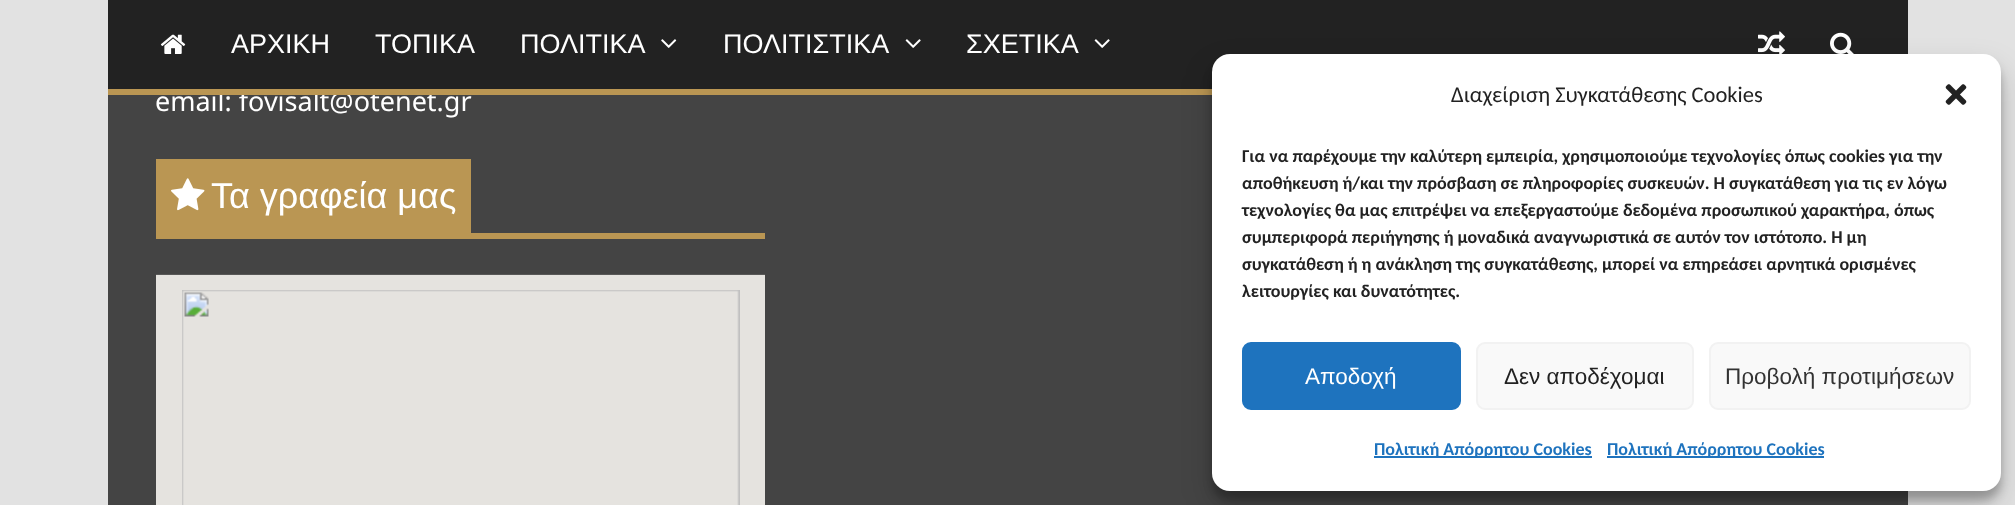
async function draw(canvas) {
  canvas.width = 2015;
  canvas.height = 505;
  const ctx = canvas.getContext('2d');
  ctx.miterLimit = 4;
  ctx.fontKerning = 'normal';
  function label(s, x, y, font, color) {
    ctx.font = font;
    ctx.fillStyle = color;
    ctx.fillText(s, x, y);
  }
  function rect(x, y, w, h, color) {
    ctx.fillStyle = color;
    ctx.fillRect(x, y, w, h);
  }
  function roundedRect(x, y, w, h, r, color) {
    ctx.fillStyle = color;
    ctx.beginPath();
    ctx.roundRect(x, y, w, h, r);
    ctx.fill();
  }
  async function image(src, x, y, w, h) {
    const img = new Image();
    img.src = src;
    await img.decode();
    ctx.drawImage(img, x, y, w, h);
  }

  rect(0, 0, 2015, 505, '#e2e2e2');
  rect(108, 0, 1800, 89, '#222');
  rect(108, 95, 1800, 410, '#444');
  label('email: fovisalt@otenet.gr', 155, 111, '27px Noto Sans', '#fff');
  rect(108, 89, 1104, 6, '#ba9653');
  await image('assets/img1.png', 160, 34, 26, 20);
  label('ΑΡΧΙΚΗ', 231, 53, '27px Liberation Sans', '#fff');
  label('ΤΟΠΙΚΑ', 375, 53, '27px Liberation Sans', '#fff');
  label('ΠΟΛΙΤΙΚΑ', 520, 53, '27px Liberation Sans', '#fff');
  await image('assets/img2.png', 661, 39, 16, 9);
  label('ΠΟΛΙΤΙΣΤΙΚΑ', 723, 53, '27px Liberation Sans', '#fff');
  await image('assets/img3.png', 905, 39, 16, 9);
  label('ΣΧΕΤΙΚΑ', 966, 53, '27px Liberation Sans', '#fff');
  await image('assets/img3.png', 1094, 39, 16, 9);
  await image('assets/img4.png', 1758, 31, 27, 23);
  await image('assets/img5.png', 1830, 32, 24, 22);
  rect(156, 233, 609, 6, '#ba9653');
  rect(156, 159, 315, 74, '#ba9653');
  await image('assets/img6.png', 171, 178, 34, 33);
  label('Τα γραφεία μας', 211, 208, '36px Liberation Sans', '#fff');
  await image('assets/img7.png', 156, 274, 609, 231);
  ctx.fillStyle = '#0000003b';
  ctx.filter = 'blur(4.5px)';
  ctx.beginPath();
  ctx.roundRect(1212, 63, 789, 437, 18);
  ctx.fill();
  ctx.filter = 'none';
  ctx.fillStyle = '#00000030';
  ctx.filter = 'blur(15px)';
  ctx.beginPath();
  ctx.roundRect(1212, 69, 789, 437, 18);
  ctx.fill();
  ctx.filter = 'none';
  roundedRect(1212, 54, 789, 437, 18, '#fff');
  label('Διαχείριση Συγκατάθεσης Cookies', 1451, 102, '22.5px Carlito', '#222');
  await image('assets/img8.png', 1945, 84, 22, 21);
  label('Για να παρέχουμε την καλύτερη εμπειρία, χρησιμοποιούμε τεχνολογίες όπως cookies για την', 1242, 162, 'bold 18px Carlito', '#222');
  label('αποθήκευση ή/και την πρόσβαση σε πληροφορίες συσκευών. Η συγκατάθεση για τις εν λόγω', 1242, 189, 'bold 18px Carlito', '#222');
  label('τεχνολογίες θα μας επιτρέψει να επεξεργαστούμε δεδομένα προσωπικού χαρακτήρα, όπως', 1242, 216, 'bold 18px Carlito', '#222');
  label('συμπεριφορά περιήγησης ή μοναδικά αναγνωριστικά σε αυτόν τον ιστότοπο. Η μη', 1242, 243, 'bold 18px Carlito', '#222');
  label('συγκατάθεση ή η ανάκληση της συγκατάθεσης, μπορεί να επηρεάσει αρνητικά ορισμένες', 1242, 270, 'bold 18px Carlito', '#222');
  label('λειτουργίες και δυνατότητες.', 1242, 297, 'bold 18px Carlito', '#222');
  ctx.fillStyle = '#1e73be';
  ctx.beginPath();
  ctx.roundRect(1243, 343, 217, 66, 8);
  ctx.fill();
  ctx.strokeStyle = '#1e73be';
  ctx.lineWidth = 2;
  ctx.stroke();
  label('Αποδοχή', 1305, 384, '22.5px Liberation Sans', '#fff');
  ctx.fillStyle = '#f9f9f9';
  ctx.beginPath();
  ctx.roundRect(1477, 343, 216, 66, 8);
  ctx.fill();
  ctx.strokeStyle = '#f2f2f2';
  ctx.stroke();
  label('Δεν αποδέχομαι', 1504, 384, '22.5px Liberation Sans', '#222');
  ctx.fillStyle = '#f9f9f9';
  ctx.beginPath();
  ctx.roundRect(1710, 343, 260, 66, 8);
  ctx.fill();
  ctx.stroke();
  label('Προβολή προτιμήσεων', 1725, 384, '22.5px Liberation Sans', '#333');
  rect(1374, 456, 218, 2, '#1e73be');
  label('Πολιτική Απόρρητου Cookies', 1374, 455, 'bold 18px Carlito', '#1e73be');
  rect(1607, 456, 217, 2, '#1e73be');
  label('Πολιτική Απόρρητου Cookies', 1607, 455, 'bold 18px Carlito', '#1e73be');
}

draw(document.querySelector('canvas'));
